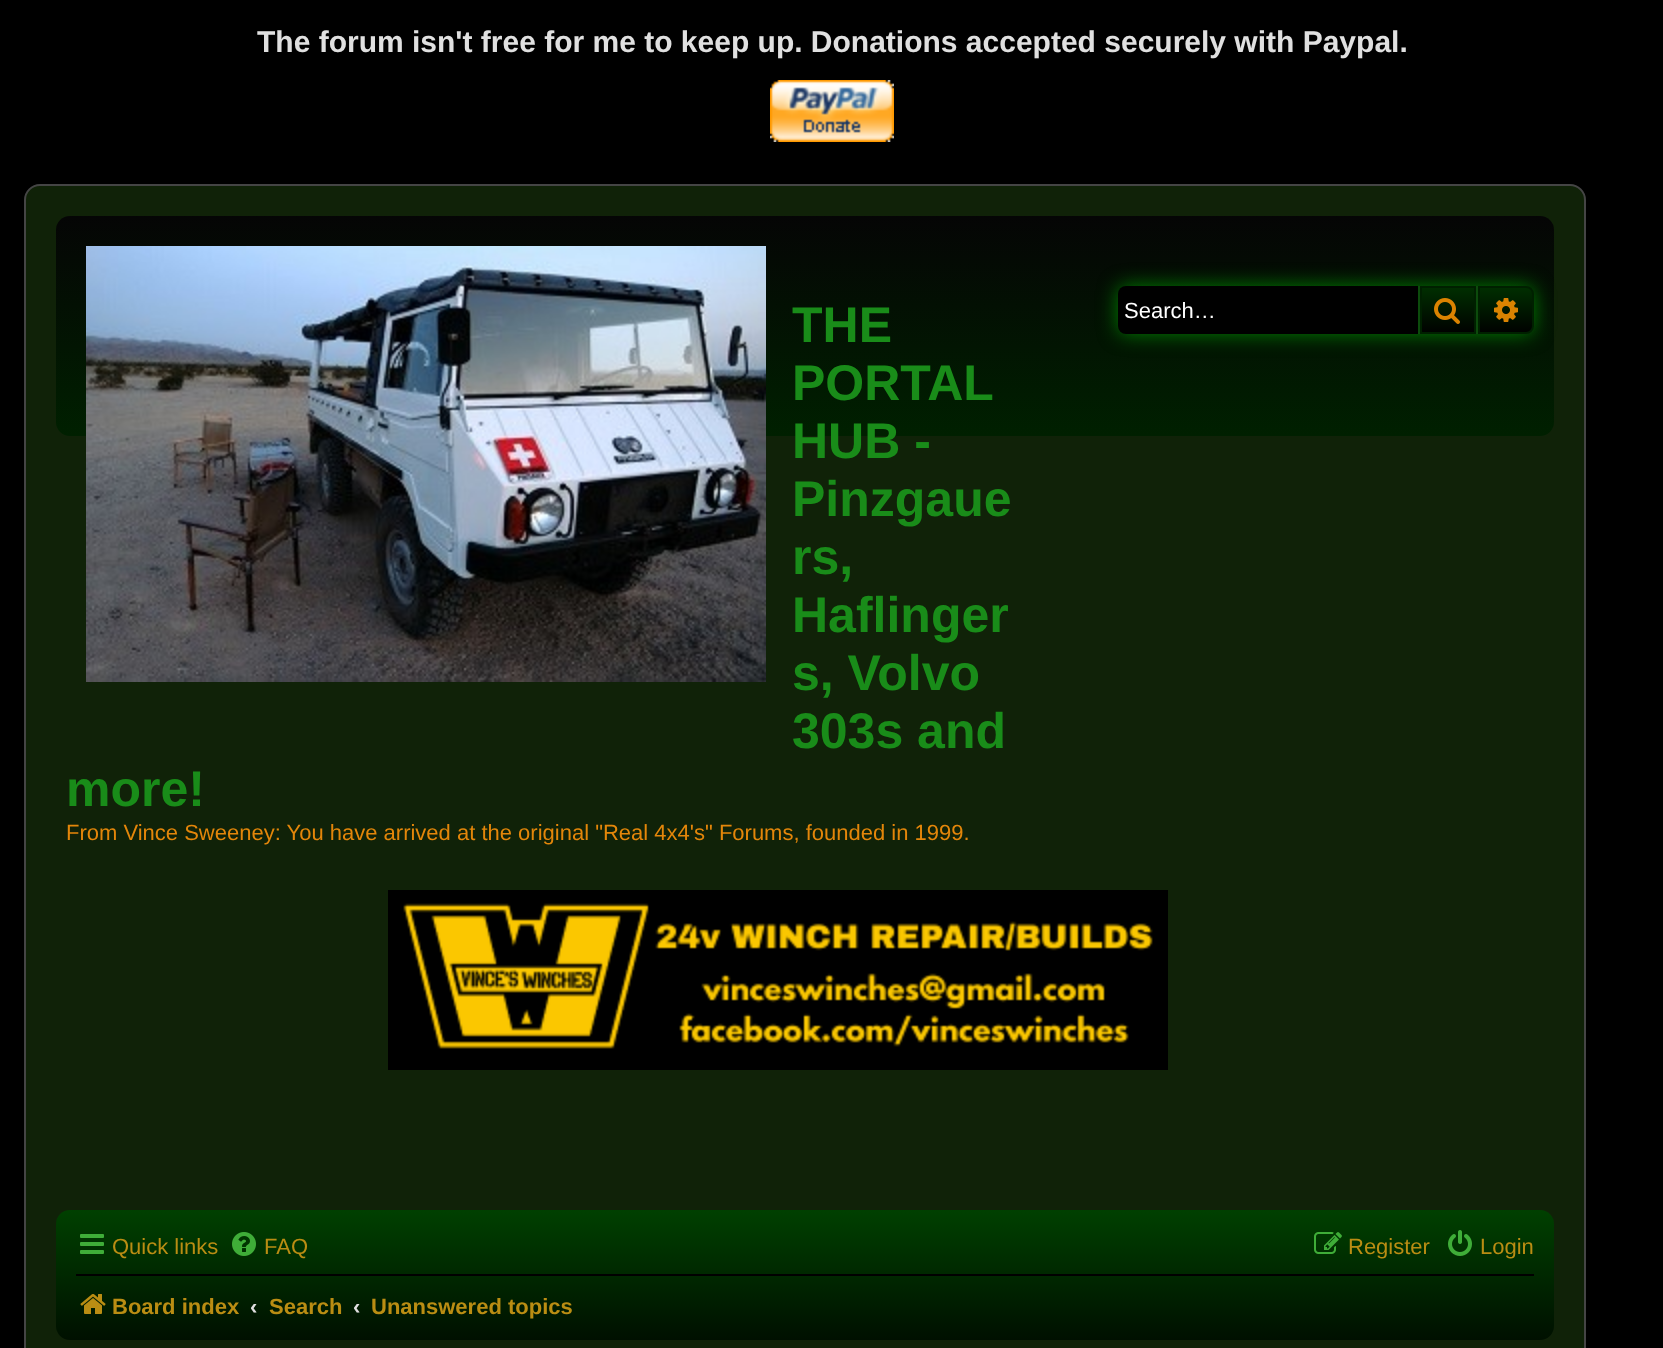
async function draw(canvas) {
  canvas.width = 1663;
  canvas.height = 1348;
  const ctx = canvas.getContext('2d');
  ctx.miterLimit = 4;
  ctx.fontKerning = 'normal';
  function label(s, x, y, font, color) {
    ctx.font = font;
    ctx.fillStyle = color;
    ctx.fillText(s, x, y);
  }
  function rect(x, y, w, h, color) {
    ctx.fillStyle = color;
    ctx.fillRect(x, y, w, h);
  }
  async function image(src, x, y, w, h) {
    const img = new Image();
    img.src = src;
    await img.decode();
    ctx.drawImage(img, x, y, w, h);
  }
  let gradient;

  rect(0, 0, 1663, 1348, '#000');
  label('The forum isn\'t free for me to keep up. Donations accepted securely with Paypal.', 257, 52, 'bold 30px Liberation Sans', '#e0e0e0');
  await image('assets/img1.png', 770, 80, 124, 62);
  ctx.fillStyle = '#102208';
  ctx.beginPath();
  ctx.roundRect(25, 185, 1560, 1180, 15);
  ctx.fill();
  ctx.strokeStyle = '#454545';
  ctx.lineWidth = 2;
  ctx.stroke();
  gradient = ctx.createLinearGradient(805, 216, 805, 436);
  gradient.addColorStop(0, '#050505');
  gradient.addColorStop(1, '#002000');
  ctx.fillStyle = gradient;
  ctx.beginPath();
  ctx.roundRect(56, 216, 1498, 220, 14);
  ctx.fill();
  await image('assets/img2.png', 86, 246, 680, 436);
  label('THE', 792, 342, 'bold 50px Liberation Sans', '#198c19');
  label('PORTAL', 792, 400, 'bold 50px Liberation Sans', '#198c19');
  label('HUB -', 792, 458, 'bold 50px Liberation Sans', '#198c19');
  label('Pinzgaue', 792, 516, 'bold 50px Liberation Sans', '#198c19');
  label('rs,', 792, 574, 'bold 50px Liberation Sans', '#198c19');
  label('Haflinger', 792, 632, 'bold 50px Liberation Sans', '#198c19');
  label('s, Volvo', 792, 690, 'bold 50px Liberation Sans', '#198c19');
  label('303s and', 792, 748, 'bold 50px Liberation Sans', '#198c19');
  label('more!', 66, 806, 'bold 50px Liberation Sans', '#198c19');
  label('From Vince Sweeney: You have arrived at the original "Real 4x4\'s" Forums, founded in 1999.', 66, 840, '22px Liberation Sans', '#e3860a');
  ctx.fillStyle = '#007f00';
  ctx.filter = 'blur(10px)';
  ctx.beginPath();
  ctx.roundRect(1118, 286, 416, 48, 8);
  ctx.fill();
  ctx.filter = 'none';
  ctx.fillStyle = '#000';
  ctx.beginPath();
  ctx.roundRect(1118, 286, 300, 48, [8, 0, 0, 8]);
  ctx.fill();
  label('Search…', 1124, 318, '22px Liberation Sans', '#fff');
  gradient = ctx.createLinearGradient(1448, 286, 1448, 334);
  gradient.addColorStop(0, '#003000');
  gradient.addColorStop(1, '#000');
  ctx.fillStyle = gradient;
  ctx.fillRect(1422, 288, 52, 44);
  ctx.strokeStyle = '#002000';
  ctx.strokeRect(1421, 287, 54, 46);
  rect(1476, 286, 2, 48, '#0c4b0c');
  rect(1418, 286, 2, 48, '#0c4b0c');
  await image('assets/img3.png', 1434, 298, 26, 26);
  gradient = ctx.createLinearGradient(1506, 286, 1506, 334);
  gradient.addColorStop(0, '#003000');
  gradient.addColorStop(1, '#000');
  ctx.fillStyle = gradient;
  ctx.beginPath();
  ctx.roundRect(1479, 287, 54, 46, [0, 7, 7, 0]);
  ctx.fill();
  ctx.stroke();
  await image('assets/img4.png', 1494, 298, 24, 24);
  await image('assets/img5.png', 388, 890, 780, 180);
  gradient = ctx.createLinearGradient(805, 1210, 805, 1340);
  gradient.addColorStop(0, '#004000');
  gradient.addColorStop(1, '#001000');
  ctx.fillStyle = gradient;
  ctx.beginPath();
  ctx.roundRect(56, 1210, 1498, 130, 14);
  ctx.fill();
  await image('assets/img6.png', 80, 1234, 24, 20);
  label('Quick links', 112, 1254, '22px Liberation Sans', '#ba8d13');
  await image('assets/img7.png', 232, 1232, 24, 24);
  label('FAQ', 264, 1254, '22px Liberation Sans', '#ba8d13');
  await image('assets/img8.png', 1314, 1232, 28, 22);
  label('Register', 1348, 1254, '22px Liberation Sans', '#ba8d13');
  await image('assets/img9.png', 1448, 1230, 24, 26);
  label('Login', 1480, 1254, '22px Liberation Sans', '#ba8d13');
  rect(76, 1274, 1458, 2, '#000');
  await image('assets/img10.png', 80, 1294, 26, 20);
  label('Board index', 112, 1314, 'bold 22px Liberation Sans', '#ba8d13');
  label('‹', 250, 1314, 'bold 22px Liberation Sans', '#e0e0e0');
  label('Search', 269, 1314, 'bold 22px Liberation Sans', '#ba8d13');
  label('‹', 353, 1314, 'bold 22px Liberation Sans', '#e0e0e0');
  label('Unanswered topics', 371, 1314, 'bold 22px Liberation Sans', '#ba8d13');
}

draw(document.querySelector('canvas'));
